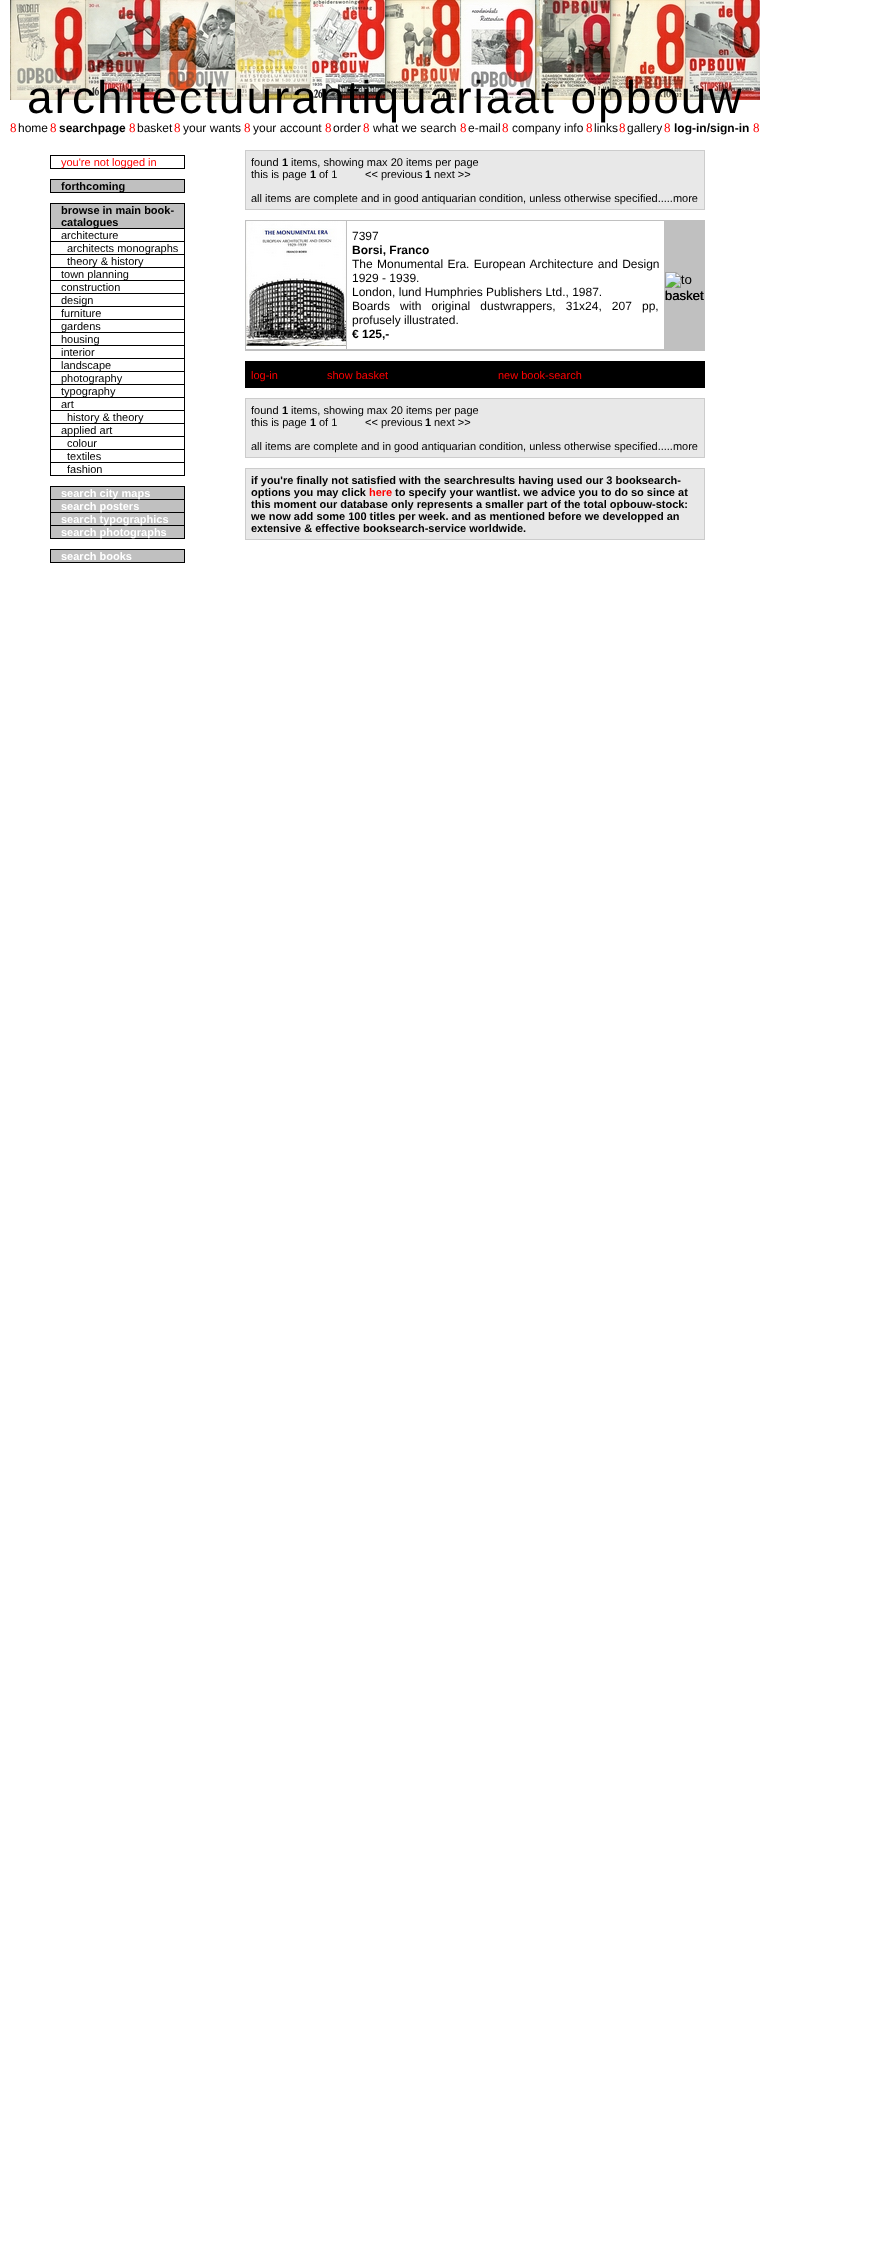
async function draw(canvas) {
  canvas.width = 871;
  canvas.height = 2259;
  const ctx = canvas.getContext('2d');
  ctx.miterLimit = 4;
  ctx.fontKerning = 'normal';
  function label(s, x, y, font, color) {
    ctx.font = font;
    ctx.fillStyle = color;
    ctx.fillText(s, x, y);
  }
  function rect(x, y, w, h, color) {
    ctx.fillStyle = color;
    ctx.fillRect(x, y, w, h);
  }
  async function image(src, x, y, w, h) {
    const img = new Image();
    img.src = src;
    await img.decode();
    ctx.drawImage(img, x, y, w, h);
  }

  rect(0, 0, 871, 2259, '#fff');
  await image('assets/img1.png', 10, 0, 75, 100);
  await image('assets/img2.png', 85, 0, 75, 100);
  await image('assets/img3.png', 160, 0, 75, 100);
  await image('assets/img4.png', 235, 0, 75, 100);
  await image('assets/img5.png', 310, 0, 75, 100);
  await image('assets/img6.png', 385, 0, 75, 100);
  await image('assets/img7.png', 460, 0, 75, 100);
  await image('assets/img8.png', 535, 0, 75, 100);
  await image('assets/img9.png', 610, 0, 75, 100);
  await image('assets/img10.png', 685, 0, 75, 100);
  ctx.letterSpacing = '2px';
  label('architectuurantiquariaat opbouw', 27, 113, '46px Liberation Sans', '#000');
  ctx.letterSpacing = '0px';
  label('8', 10, 132, '13px Liberation Serif', '#f00');
  label('home', 18, 132, '12px Liberation Sans', '#000');
  label('8', 50, 132, '13px Liberation Serif', '#f00');
  label('searchpage', 59, 132, 'bold 12px Liberation Sans', '#000');
  label('8', 129, 132, '13px Liberation Serif', '#f00');
  label('basket', 137, 132, '12px Liberation Sans', '#000');
  label('8', 174, 132, '13px Liberation Serif', '#f00');
  label('your wants', 183, 132, '12px Liberation Sans', '#000');
  label('8', 244, 132, '13px Liberation Serif', '#f00');
  label('your account', 253, 132, '12px Liberation Sans', '#000');
  label('8', 325, 132, '13px Liberation Serif', '#f00');
  label('order', 333, 132, '12px Liberation Sans', '#000');
  label('8', 363, 132, '13px Liberation Serif', '#f00');
  label('what we search', 373, 132, '12px Liberation Sans', '#000');
  label('8', 460, 132, '13px Liberation Serif', '#f00');
  label('e-mail', 468, 132, '12px Liberation Sans', '#000');
  label('8', 502, 132, '13px Liberation Serif', '#f00');
  label('company info', 512, 132, '12px Liberation Sans', '#000');
  label('8', 586, 132, '13px Liberation Serif', '#f00');
  label('links', 594, 132, '12px Liberation Sans', '#000');
  label('8', 619, 132, '13px Liberation Serif', '#f00');
  label('gallery', 627, 132, '12px Liberation Sans', '#000');
  label('8', 664, 132, '13px Liberation Serif', '#f00');
  label('log-in/sign-in', 674, 132, 'bold 12px Liberation Sans', '#000');
  label('8', 753, 132, '13px Liberation Serif', '#f00');
  rect(50, 155, 135, 1, '#000');
  rect(184, 155, 1, 14, '#000');
  rect(50, 168, 135, 1, '#000');
  rect(50, 155, 1, 14, '#000');
  label('you\'re not logged in', 61, 166, '11px Liberation Sans', '#f00');
  rect(50, 179, 135, 1, '#000');
  rect(184, 179, 1, 14, '#000');
  rect(50, 192, 135, 1, '#000');
  rect(50, 179, 1, 14, '#000');
  rect(51, 180, 133, 12, '#c0c0c0');
  label('forthcoming', 61, 190, 'bold 11px Liberation Sans', '#000');
  rect(50, 203, 135, 1, '#000');
  rect(184, 203, 1, 273, '#000');
  rect(50, 475, 135, 1, '#000');
  rect(50, 203, 1, 273, '#000');
  rect(51, 204, 133, 24, '#c0c0c0');
  label('browse in main book-', 61, 214, 'bold 11px Liberation Sans', '#000');
  rect(50, 228, 135, 1, '#000');
  label('catalogues', 61, 226, 'bold 11px Liberation Sans', '#000');
  label('architecture', 61, 239, '11px Liberation Sans', '#000');
  rect(50, 241, 135, 1, '#000');
  rect(50, 254, 135, 1, '#000');
  label('architects monographs', 67, 252, '11px Liberation Sans', '#000');
  rect(50, 267, 135, 1, '#000');
  label('theory & history', 67, 265, '11px Liberation Sans', '#000');
  rect(50, 280, 135, 1, '#000');
  label('town planning', 61, 278, '11px Liberation Sans', '#000');
  label('construction', 61, 291, '11px Liberation Sans', '#000');
  rect(50, 293, 135, 1, '#000');
  rect(50, 306, 135, 1, '#000');
  label('design', 61, 304, '11px Liberation Sans', '#000');
  label('furniture', 61, 317, '11px Liberation Sans', '#000');
  rect(50, 319, 135, 1, '#000');
  rect(50, 332, 135, 1, '#000');
  label('gardens', 61, 330, '11px Liberation Sans', '#000');
  rect(50, 345, 135, 1, '#000');
  label('housing', 61, 343, '11px Liberation Sans', '#000');
  label('interior', 61, 356, '11px Liberation Sans', '#000');
  rect(50, 358, 135, 1, '#000');
  rect(50, 371, 135, 1, '#000');
  label('landscape', 61, 369, '11px Liberation Sans', '#000');
  rect(50, 384, 135, 1, '#000');
  label('photography', 61, 382, '11px Liberation Sans', '#000');
  rect(50, 397, 135, 1, '#000');
  label('typography', 61, 395, '11px Liberation Sans', '#000');
  label('art', 61, 408, '11px Liberation Sans', '#000');
  rect(50, 410, 135, 1, '#000');
  rect(50, 423, 135, 1, '#000');
  label('history & theory', 67, 421, '11px Liberation Sans', '#000');
  rect(50, 436, 135, 1, '#000');
  label('applied art', 61, 434, '11px Liberation Sans', '#000');
  label('colour', 67, 447, '11px Liberation Sans', '#000');
  rect(50, 449, 135, 1, '#000');
  label('textiles', 67, 460, '11px Liberation Sans', '#000');
  rect(50, 462, 135, 1, '#000');
  label('fashion', 67, 473, '11px Liberation Sans', '#000');
  rect(50, 486, 135, 1, '#000');
  rect(184, 486, 1, 53, '#000');
  rect(50, 538, 135, 1, '#000');
  rect(50, 486, 1, 53, '#000');
  rect(51, 487, 133, 12, '#c0c0c0');
  rect(50, 499, 135, 1, '#000');
  label('search city maps', 61, 497, 'bold 11px Liberation Sans', '#fff');
  rect(51, 500, 133, 12, '#c0c0c0');
  rect(50, 512, 135, 1, '#000');
  label('search posters', 61, 510, 'bold 11px Liberation Sans', '#fff');
  rect(51, 513, 133, 12, '#c0c0c0');
  rect(50, 525, 135, 1, '#000');
  label('search typographics', 61, 523, 'bold 11px Liberation Sans', '#fff');
  rect(51, 526, 133, 12, '#c0c0c0');
  label('search photographs', 61, 536, 'bold 11px Liberation Sans', '#fff');
  rect(50, 549, 135, 1, '#000');
  rect(184, 549, 1, 14, '#000');
  rect(50, 562, 135, 1, '#000');
  rect(50, 549, 1, 14, '#000');
  rect(51, 550, 133, 12, '#c0c0c0');
  label('search books', 61, 560, 'bold 11px Liberation Sans', '#fff');
  rect(246, 151, 458, 58, '#e8e8e8');
  rect(245, 150, 460, 1, '#ccc');
  rect(704, 150, 1, 60, '#ccc');
  rect(245, 209, 460, 1, '#ccc');
  rect(245, 150, 1, 60, '#ccc');
  label('found', 251, 166, '11px Liberation Sans', '#000');
  label('1', 282, 166, 'bold 11px Liberation Sans', '#000');
  label('items, showing max 20 items per page', 291, 166, '11px Liberation Sans', '#000');
  label('this is page', 251, 178, '11px Liberation Sans', '#000');
  label('1', 310, 178, 'bold 11px Liberation Sans', '#000');
  label('of 1', 319, 178, '11px Liberation Sans', '#000');
  label('<< previous', 365, 178, '11px Liberation Sans', '#000');
  label('1', 425, 178, 'bold 11px Liberation Sans', '#000');
  label('next >>', 434, 178, '11px Liberation Sans', '#000');
  label('all items are complete and in good antiquarian condition, unless otherwise specified.....more', 251, 202, '11px Liberation Sans', '#000');
  rect(245, 220, 460, 1, '#c0c0c0');
  rect(704, 220, 1, 131, '#c0c0c0');
  rect(245, 350, 460, 1, '#c0c0c0');
  rect(245, 220, 1, 131, '#c0c0c0');
  rect(664, 221, 40, 129, '#c0c0c0');
  rect(346, 349, 319, 1, '#c0c0c0');
  rect(346, 220, 1, 130, '#c0c0c0');
  rect(245, 349, 102, 1, '#c0c0c0');
  await image('assets/img11.png', 246, 221, 100, 125);
  label('7397', 352, 240, '12px Liberation Sans', '#000');
  label('Borsi, Franco', 352, 254, 'bold 12px Liberation Sans', '#000');
  ctx.wordSpacing = '1px';
  label('The Monumental Era. European Architecture and Design', 352, 268, '12px Liberation Sans', '#000');
  ctx.wordSpacing = '0px';
  label('1929 - 1939.', 352, 282, '12px Liberation Sans', '#000');
  label('London, lund Humphries Publishers Ltd., 1987.', 352, 296, '12px Liberation Sans', '#000');
  ctx.wordSpacing = '6.75px';
  label('Boards with original dustwrappers, 31x24, 207 pp,', 352, 310, '12px Liberation Sans', '#000');
  ctx.wordSpacing = '0px';
  label('profusely illustrated.', 352, 324, '12px Liberation Sans', '#000');
  label('€ 125,-', 352, 338, 'bold 12px Liberation Sans', '#000');
  await image('assets/img12.png', 665, 272, 39, 28);
  label('basket', 665, 300, '13px Liberation Sans', '#000');
  rect(246, 362, 458, 25, '#000');
  rect(245, 361, 460, 1, '#000');
  rect(704, 361, 1, 27, '#000');
  rect(245, 387, 460, 1, '#000');
  rect(245, 361, 1, 27, '#000');
  label('log-in', 251, 379, '11px Liberation Sans', '#f00');
  label('show basket', 327, 379, '11px Liberation Sans', '#f00');
  label('new book-search', 498, 379, '11px Liberation Sans', '#f00');
  rect(246, 399, 458, 58, '#e8e8e8');
  rect(245, 398, 460, 1, '#ccc');
  rect(704, 398, 1, 60, '#ccc');
  rect(245, 457, 460, 1, '#ccc');
  rect(245, 398, 1, 60, '#ccc');
  label('found', 251, 414, '11px Liberation Sans', '#000');
  label('1', 282, 414, 'bold 11px Liberation Sans', '#000');
  label('items, showing max 20 items per page', 291, 414, '11px Liberation Sans', '#000');
  label('this is page', 251, 426, '11px Liberation Sans', '#000');
  label('1', 310, 426, 'bold 11px Liberation Sans', '#000');
  label('of 1', 319, 426, '11px Liberation Sans', '#000');
  label('<< previous', 365, 426, '11px Liberation Sans', '#000');
  label('1', 425, 426, 'bold 11px Liberation Sans', '#000');
  label('next >>', 434, 426, '11px Liberation Sans', '#000');
  label('all items are complete and in good antiquarian condition, unless otherwise specified.....more', 251, 450, '11px Liberation Sans', '#000');
  rect(246, 469, 458, 70, '#e8e8e8');
  rect(245, 468, 460, 1, '#ccc');
  rect(704, 468, 1, 72, '#ccc');
  rect(245, 539, 460, 1, '#ccc');
  rect(245, 468, 1, 72, '#ccc');
  label('if you\'re finally not satisfied with the searchresults having used our 3 booksearch-', 251, 484, 'bold 11px Liberation Sans', '#000');
  label('options you may click', 251, 496, 'bold 11px Liberation Sans', '#000');
  label('here', 369, 496, 'bold 11px Liberation Sans', '#f00');
  label('to specify your wantlist. we advice you to do so since at', 395, 496, 'bold 11px Liberation Sans', '#000');
  label('this moment our database only represents a smaller part of the total opbouw-stock:', 251, 508, 'bold 11px Liberation Sans', '#000');
  label('we now add some 100 titles per week. and as mentioned before we developped an', 251, 520, 'bold 11px Liberation Sans', '#000');
  label('extensive & effective booksearch-service worldwide.', 251, 532, 'bold 11px Liberation Sans', '#000');
}

draw(document.querySelector('canvas'));
